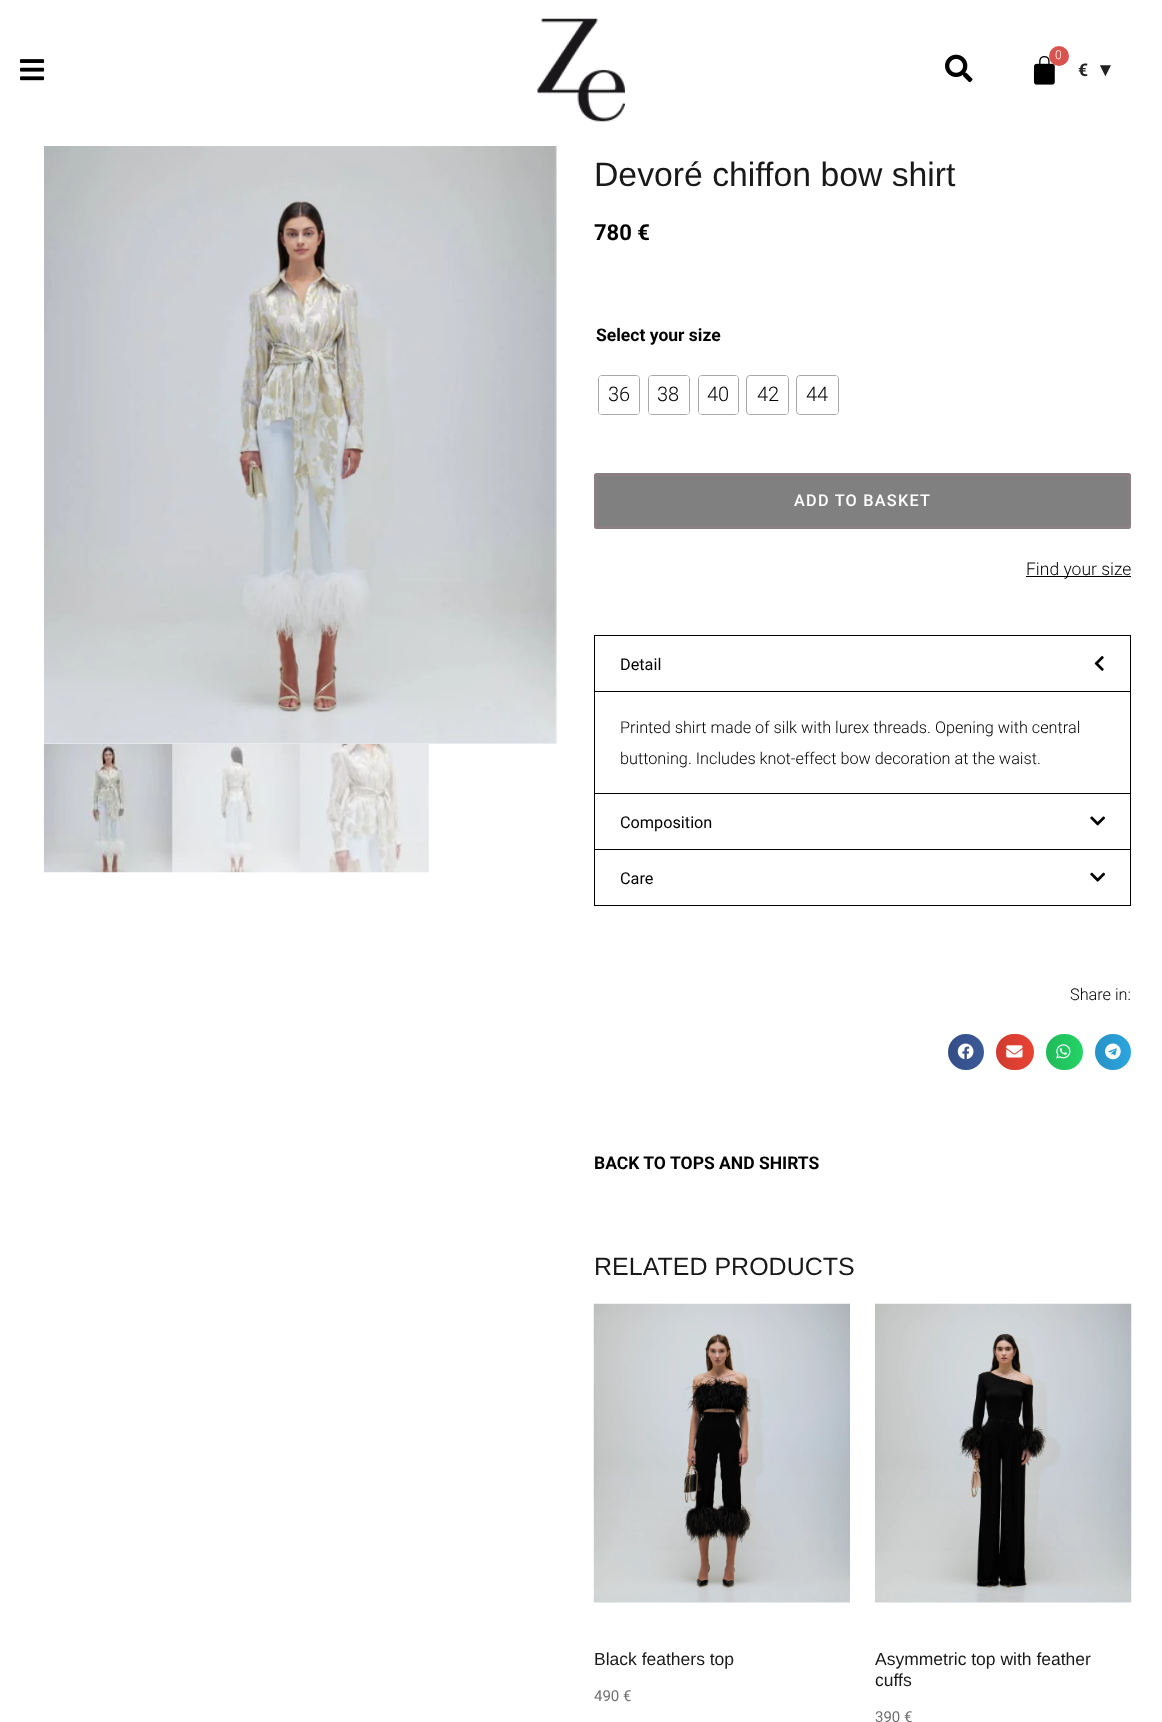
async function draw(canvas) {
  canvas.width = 1162;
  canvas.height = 1722;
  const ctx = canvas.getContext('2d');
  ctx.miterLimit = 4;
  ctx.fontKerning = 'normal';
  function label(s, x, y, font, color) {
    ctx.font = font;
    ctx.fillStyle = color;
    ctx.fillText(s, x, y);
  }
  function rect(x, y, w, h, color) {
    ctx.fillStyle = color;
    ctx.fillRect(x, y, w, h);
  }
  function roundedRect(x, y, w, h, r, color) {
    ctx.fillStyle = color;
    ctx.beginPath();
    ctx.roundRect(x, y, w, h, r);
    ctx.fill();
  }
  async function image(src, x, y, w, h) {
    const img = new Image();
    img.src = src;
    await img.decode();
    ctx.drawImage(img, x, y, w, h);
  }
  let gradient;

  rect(0, 0, 1162, 1722, '#fff');
  await image('assets/img1.png', 20, 59, 25, 22);
  await image('assets/img2.png', 537, 18, 88, 104);
  await image('assets/img3.png', 945, 54, 28, 29);
  await image('assets/img4.png', 1033, 56, 22, 29);
  ctx.fillStyle = '#d9534f';
  ctx.beginPath();
  ctx.arc(1059, 56, 10, 0, 2 * Math.PI);
  ctx.fill();
  label('0', 1055, 59, '300 12px Roboto', '#fff');
  label('€', 1078, 76, 'bold 17.5px Roboto', '#212121');
  label('▼', 1096, 76, 'bold 19px Liberation Sans', '#212121');
  await image('assets/img6.png', 43, 743, 130, 130);
  await image('assets/img5.png', 44, 146, 513, 598);
  await image('assets/img7.png', 172, 744, 128, 129);
  await image('assets/img8.png', 300, 743, 129, 130);
  label('Devoré chiffon bow shirt', 594, 186, '33.75px Liberation Sans', '#191919');
  label('780 €', 594, 240, 'bold 22px Roboto', '#000');
  label('Select your size', 596, 341, 'bold 17.5px Roboto', '#000');
  ctx.beginPath();
  ctx.roundRect(598.5, 375.5, 41, 39, 3.5);
  ctx.strokeStyle = '#a8a8a8';
  ctx.stroke();
  roundedRect(599, 376, 40, 38, 2.5, '#fff');
  label('36', 608, 401, '300 20px Roboto', '#000');
  ctx.beginPath();
  ctx.roundRect(648.5, 375.5, 41, 39, 3.5);
  ctx.stroke();
  roundedRect(649, 376, 40, 38, 2.5, '#fff');
  label('38', 657, 401, '300 20px Roboto', '#000');
  ctx.beginPath();
  ctx.roundRect(698.5, 375.5, 40, 39, 3.5);
  ctx.stroke();
  roundedRect(699, 376, 39, 38, 2.5, '#fff');
  label('40', 707, 401, '300 20px Roboto', '#000');
  ctx.beginPath();
  ctx.roundRect(746.5, 375.5, 42, 39, 3.5);
  ctx.stroke();
  roundedRect(748, 376, 40, 38, 2.5, '#fff');
  label('42', 757, 401, '300 20px Roboto', '#000');
  ctx.beginPath();
  ctx.roundRect(796.5, 375.5, 42, 39, 3.5);
  ctx.stroke();
  roundedRect(798, 376, 40, 38, 2.5, '#fff');
  label('44', 806, 401, '300 20px Roboto', '#000');
  ctx.fillStyle = '#808080';
  ctx.beginPath();
  ctx.roundRect(595.5, 474.5, 534, 53, 1);
  ctx.fill();
  ctx.strokeStyle = '#8a8083';
  ctx.lineWidth = 3;
  ctx.stroke();
  ctx.letterSpacing = '1.25px';
  label('ADD TO BASKET', 794, 506, '500 16.25px Roboto', '#fff');
  rect(1026, 576, 105, 1, '#000');
  ctx.letterSpacing = '0px';
  label('Find your size', 1026, 575, '300 17.5px Roboto', '#000');
  ctx.strokeStyle = '#000';
  ctx.lineWidth = 1;
  ctx.strokeRect(594.5, 635.5, 536, 158);
  label('Detail', 620, 670, '16.25px Roboto', '#000');
  await image('assets/img9.png', 1094, 656, 10, 15);
  rect(595, 691, 535, 1, '#000');
  label('Printed shirt made of silk with lurex threads. Opening with central', 620, 733, '300 16.25px Roboto', '#000');
  label('buttoning. Includes knot-effect bow decoration at the waist.', 620, 764, '300 16.25px Roboto', '#000');
  rect(1130, 794, 1, 112, '#000');
  rect(594, 849, 537, 1, '#000');
  rect(594, 794, 1, 56, '#000');
  label('Composition', 620, 828, '16.25px Roboto', '#000');
  await image('assets/img10.png', 1090, 816, 15, 10);
  rect(594, 905, 537, 1, '#000');
  rect(594, 850, 1, 56, '#000');
  label('Care', 620, 884, '16.25px Roboto', '#000');
  await image('assets/img11.png', 1090, 872, 16, 10);
  label('Share in:', 1070, 1000, '300 16.25px Roboto', '#000');
  ctx.fillStyle = '#3b5998';
  ctx.beginPath();
  ctx.arc(966, 1052, 18, 0, 2 * Math.PI);
  ctx.fill();
  gradient = ctx.createLinearGradient(948, 1052, 984, 1052);
  gradient.addColorStop(0, '#0000001f');
  gradient.addColorStop(1, '#00000000');
  ctx.fillStyle = gradient;
  ctx.beginPath();
  ctx.arc(966, 1052, 18, 0, 2 * Math.PI);
  ctx.fill();
  await image('assets/img12.png', 957, 1043, 17, 17);
  roundedRect(996, 1034, 38, 36, 18, '#ea4335');
  gradient = ctx.createLinearGradient(996, 1052, 1034, 1052);
  gradient.addColorStop(0, '#0000001f');
  gradient.addColorStop(1, '#00000000');
  ctx.fillStyle = gradient;
  ctx.beginPath();
  ctx.roundRect(996, 1034, 38, 36, 18);
  ctx.fill();
  await image('assets/img13.png', 1006, 1045, 17, 13);
  roundedRect(1046, 1034, 37, 36, 18, '#25d366');
  gradient = ctx.createLinearGradient(1046, 1052, 1083, 1052);
  gradient.addColorStop(0, '#0000001f');
  gradient.addColorStop(1, '#00000000');
  ctx.fillStyle = gradient;
  ctx.beginPath();
  ctx.roundRect(1046, 1034, 37, 36, 18);
  ctx.fill();
  await image('assets/img14.png', 1056, 1044, 15, 15);
  ctx.fillStyle = '#2ca5e0';
  ctx.beginPath();
  ctx.arc(1113, 1052, 18, 0, 2 * Math.PI);
  ctx.fill();
  gradient = ctx.createLinearGradient(1095, 1052, 1131, 1052);
  gradient.addColorStop(0, '#0000001f');
  gradient.addColorStop(1, '#00000000');
  ctx.fillStyle = gradient;
  ctx.beginPath();
  ctx.arc(1113, 1052, 18, 0, 2 * Math.PI);
  ctx.fill();
  await image('assets/img15.png', 1105, 1043, 16, 17);
  label('BACK TO', 594, 1169, 'bold 17.5px Roboto', '#000');
  label('TOPS AND SHIRTS', 670, 1169, 'bold 17.5px Roboto', '#000');
  label('RELATED PRODUCTS', 594, 1275, '25px Liberation Sans', '#191919');
  await image('assets/img16.png', 593, 1303, 257, 300);
  label('Black feathers top', 594, 1665, '17.5px Liberation Sans', '#191919');
  label('490 €', 594, 1701, '15px Roboto', '#707070');
  await image('assets/img17.png', 875, 1303, 257, 300);
  label('Asymmetric top with feather', 875, 1665, '17.5px Liberation Sans', '#191919');
  label('cuffs', 875, 1686, '17.5px Liberation Sans', '#191919');
  label('390 €', 875, 1722, '15px Roboto', '#707070');
}

draw(document.querySelector('canvas'));
